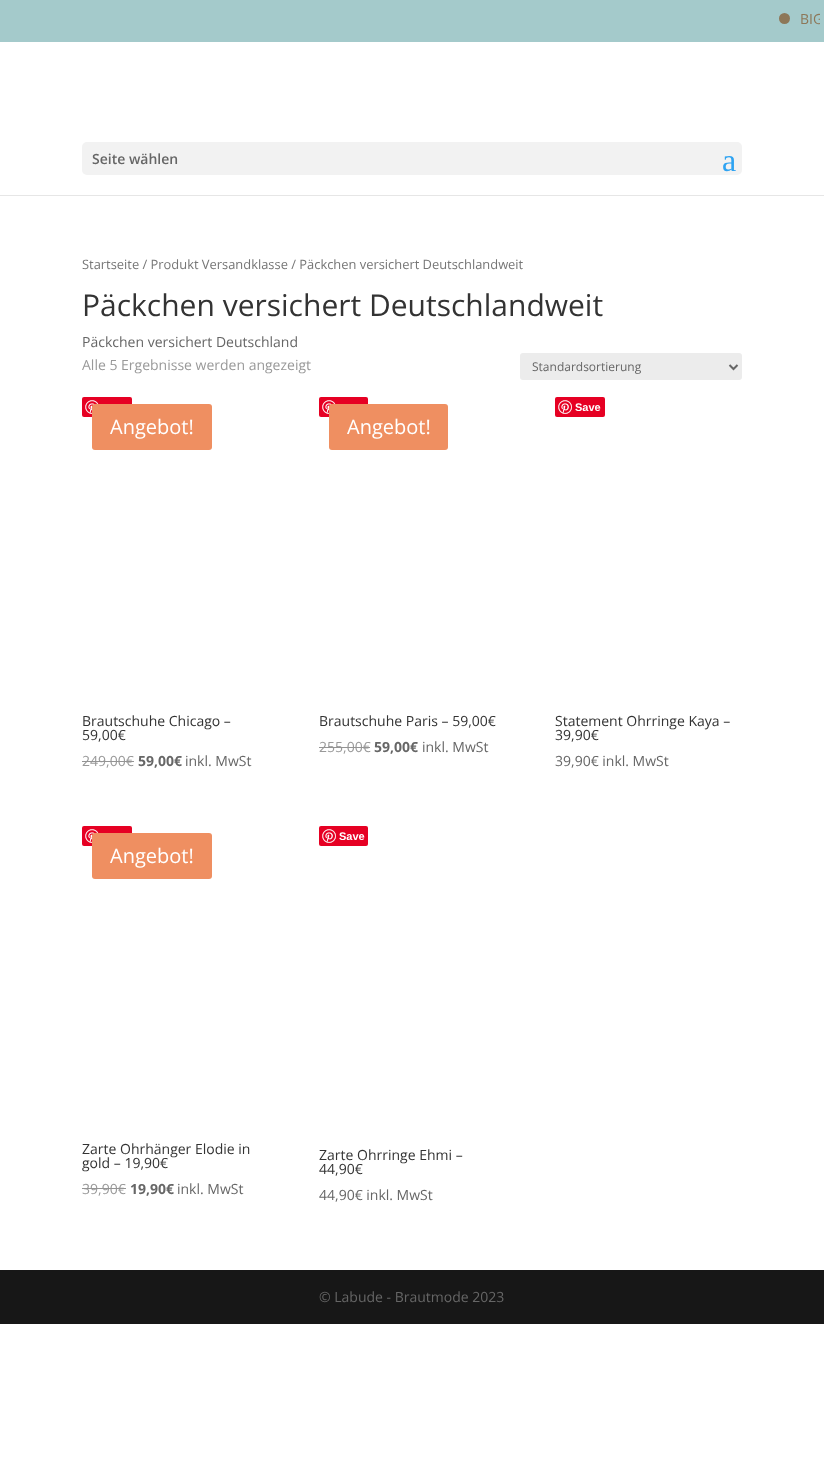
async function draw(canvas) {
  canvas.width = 824;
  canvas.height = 1459;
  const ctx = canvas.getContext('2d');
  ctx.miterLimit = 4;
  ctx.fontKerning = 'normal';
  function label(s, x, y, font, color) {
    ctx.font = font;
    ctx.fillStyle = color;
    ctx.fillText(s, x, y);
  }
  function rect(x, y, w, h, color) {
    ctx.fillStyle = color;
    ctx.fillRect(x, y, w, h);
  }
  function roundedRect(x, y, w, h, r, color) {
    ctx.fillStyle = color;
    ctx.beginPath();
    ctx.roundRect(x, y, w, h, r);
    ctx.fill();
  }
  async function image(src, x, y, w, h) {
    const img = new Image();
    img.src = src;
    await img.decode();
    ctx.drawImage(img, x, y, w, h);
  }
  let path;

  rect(0, 0, 824, 1459, '#fff');
  rect(0, 0, 824, 42, '#a4cacb');
  ctx.fillStyle = '#8d7758';
  ctx.beginPath();
  ctx.arc(784.5, 18.5, 5.5, 0, 2 * Math.PI);
  ctx.fill();
  ctx.save();
  ctx.beginPath();
  ctx.rect(4, 7, 816, 24);
  ctx.clip();
  label('BIG', 800, 24, '14px Open Sans', '#8d7758');
  ctx.restore();
  rect(0, 195, 824, 1, '#e6e6e6');
  roundedRect(82, 142, 660, 33, 5, '#f2f2f2');
  label('Seite wählen', 92, 164, '600 14px Open Sans', '#666');
  label('a', 722, 171, '32px Liberation Serif', '#2ea3f2');
  label('Startseite / Produkt Versandklasse / Päckchen versichert Deutschlandweit', 82, 269, '12.9px Open Sans', '#767676');
  label('Päckchen versichert Deutschlandweit', 82, 316, '30px Open Sans', '#333');
  label('Päckchen versichert Deutschland', 82, 347, '14px Open Sans', '#666');
  label('Alle 5 Ergebnisse werden angezeigt', 82, 370, '14px Open Sans', '#999');
  roundedRect(520, 353, 222, 27, 3, '#ececec');
  path = new Path2D('M729.5 365L733.5 369L737.5 365');
  ctx.strokeStyle = '#666';
  ctx.lineWidth = 2;
  ctx.stroke(path);
  label('Standardsortierung', 532, 371, '12px Open Sans', '#666');
  roundedRect(82, 397, 50, 20, 2, '#e60023');
  await image('assets/img1.png', 85, 400, 14, 14);
  roundedRect(92, 404, 120, 46, 3, '#ef8f61');
  label('Angebot!', 110, 434, '20px Open Sans', '#fff');
  label('Brautschuhe Chicago –', 82, 726, '14px Open Sans', '#333');
  label('59,00€', 82, 740, '14px Open Sans', '#333');
  label('249,00€', 82, 766, '14px Open Sans', '#999');
  rect(82, 761, 52, 1, '#949494');
  label('59,00€', 138, 766, 'bold 14px Open Sans', '#666');
  label('inkl. MwSt', 185, 766, '14px Open Sans', '#666');
  roundedRect(319, 397, 49, 20, 2, '#e60023');
  await image('assets/img1.png', 322, 400, 14, 14);
  roundedRect(329, 404, 119, 46, 3, '#ef8f61');
  label('Angebot!', 347, 434, '20px Open Sans', '#fff');
  label('Brautschuhe Paris – 59,00€', 319, 726, '14px Open Sans', '#333');
  label('255,00€', 319, 752, '14px Open Sans', '#999');
  rect(319, 747, 51, 1, '#949494');
  label('59,00€', 374, 752, 'bold 14px Open Sans', '#666');
  label('inkl. MwSt', 422, 752, '14px Open Sans', '#666');
  roundedRect(555, 397, 50, 20, 2, '#e60023');
  await image('assets/img1.png', 558, 400, 14, 14);
  label('Save', 575, 411, 'bold 11px Liberation Sans', '#fff');
  label('Statement Ohrringe Kaya –', 555, 726, '14px Open Sans', '#333');
  label('39,90€', 555, 740, '14px Open Sans', '#333');
  label('39,90€ inkl. MwSt', 555, 766, '14px Open Sans', '#666');
  roundedRect(82, 826, 50, 20, 2, '#e60023');
  await image('assets/img1.png', 85, 829, 14, 14);
  roundedRect(92, 833, 120, 46, 3, '#ef8f61');
  label('Angebot!', 110, 863, '20px Open Sans', '#fff');
  label('Zarte Ohrhänger Elodie in', 82, 1154, '14px Open Sans', '#333');
  label('gold – 19,90€', 82, 1168, '14px Open Sans', '#333');
  label('39,90€', 82, 1194, '14px Open Sans', '#999');
  rect(82, 1188, 44, 1, '#949494');
  label('19,90€', 130, 1194, 'bold 14px Open Sans', '#666');
  label('inkl. MwSt', 177, 1194, '14px Open Sans', '#666');
  roundedRect(319, 826, 49, 20, 2, '#e60023');
  await image('assets/img1.png', 322, 829, 14, 14);
  label('Save', 339, 840, 'bold 11px Liberation Sans', '#fff');
  label('Zarte Ohrringe Ehmi –', 319, 1160, '14px Open Sans', '#333');
  label('44,90€', 319, 1174, '14px Open Sans', '#333');
  label('44,90€ inkl. MwSt', 319, 1200, '14px Open Sans', '#666');
  rect(0, 1270, 824, 54, '#171717');
  label('© Labude - Brautmode 2023', 319, 1302, '14px Open Sans', '#666');
}

draw(document.querySelector('canvas'));
